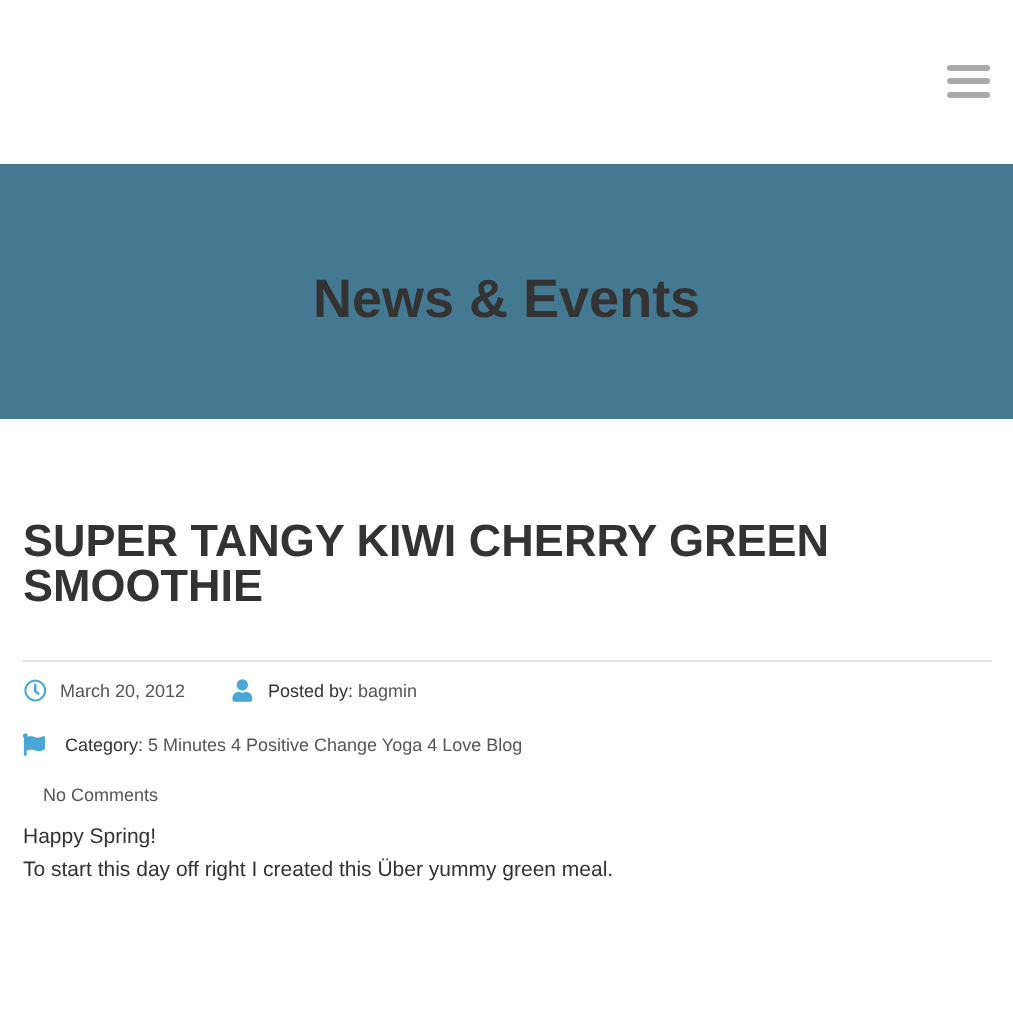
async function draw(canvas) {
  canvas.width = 1013;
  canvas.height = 1013;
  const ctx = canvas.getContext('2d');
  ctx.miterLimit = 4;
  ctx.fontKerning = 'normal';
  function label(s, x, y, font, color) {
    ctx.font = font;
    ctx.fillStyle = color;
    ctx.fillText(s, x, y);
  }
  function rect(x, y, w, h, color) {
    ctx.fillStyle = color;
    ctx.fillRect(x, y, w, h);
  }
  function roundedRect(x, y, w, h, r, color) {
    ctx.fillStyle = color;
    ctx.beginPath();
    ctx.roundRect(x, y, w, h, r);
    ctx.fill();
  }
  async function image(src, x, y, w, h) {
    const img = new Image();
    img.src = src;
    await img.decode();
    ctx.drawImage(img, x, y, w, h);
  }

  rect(0, 0, 1013, 1013, '#fff');
  roundedRect(947, 65, 43, 6, 3, '#aaa');
  roundedRect(947, 78, 43, 6, 3, '#aaa');
  roundedRect(947, 92, 43, 6, 3, '#aaa');
  rect(0, 164, 1013, 255, '#457992');
  label('News & Events', 313, 317, 'bold 54px Liberation Sans', '#333');
  rect(23, 660, 969, 2, '#e1e2e4');
  label('SUPER TANGY KIWI CHERRY GREEN', 23, 556, 'bold 45px Liberation Sans', '#333');
  label('SMOOTHIE', 23, 601, 'bold 45px Liberation Sans', '#333');
  await image('assets/img1.png', 24, 679, 23, 23);
  label('March 20, 2012', 60, 697, '18px Liberation Sans', '#555');
  await image('assets/img2.png', 232, 679, 21, 23);
  label('Posted by:', 268, 697, '18px Liberation Sans', '#333');
  label('bagmin', 358, 697, '18px Liberation Sans', '#555');
  await image('assets/img3.png', 23, 733, 22, 23);
  label('Category:', 65, 751, '18px Liberation Sans', '#333');
  label('5 Minutes 4 Positive Change Yoga 4 Love Blog', 148, 751, '18px Liberation Sans', '#555');
  label('No Comments', 43, 801, '18px Liberation Sans', '#555');
  label('Happy Spring!', 23, 843, '21px Liberation Sans', '#333');
  label('To start this day off right I created this Über yummy green meal.', 23, 876, '21px Liberation Sans', '#333');
}

draw(document.querySelector('canvas'));
